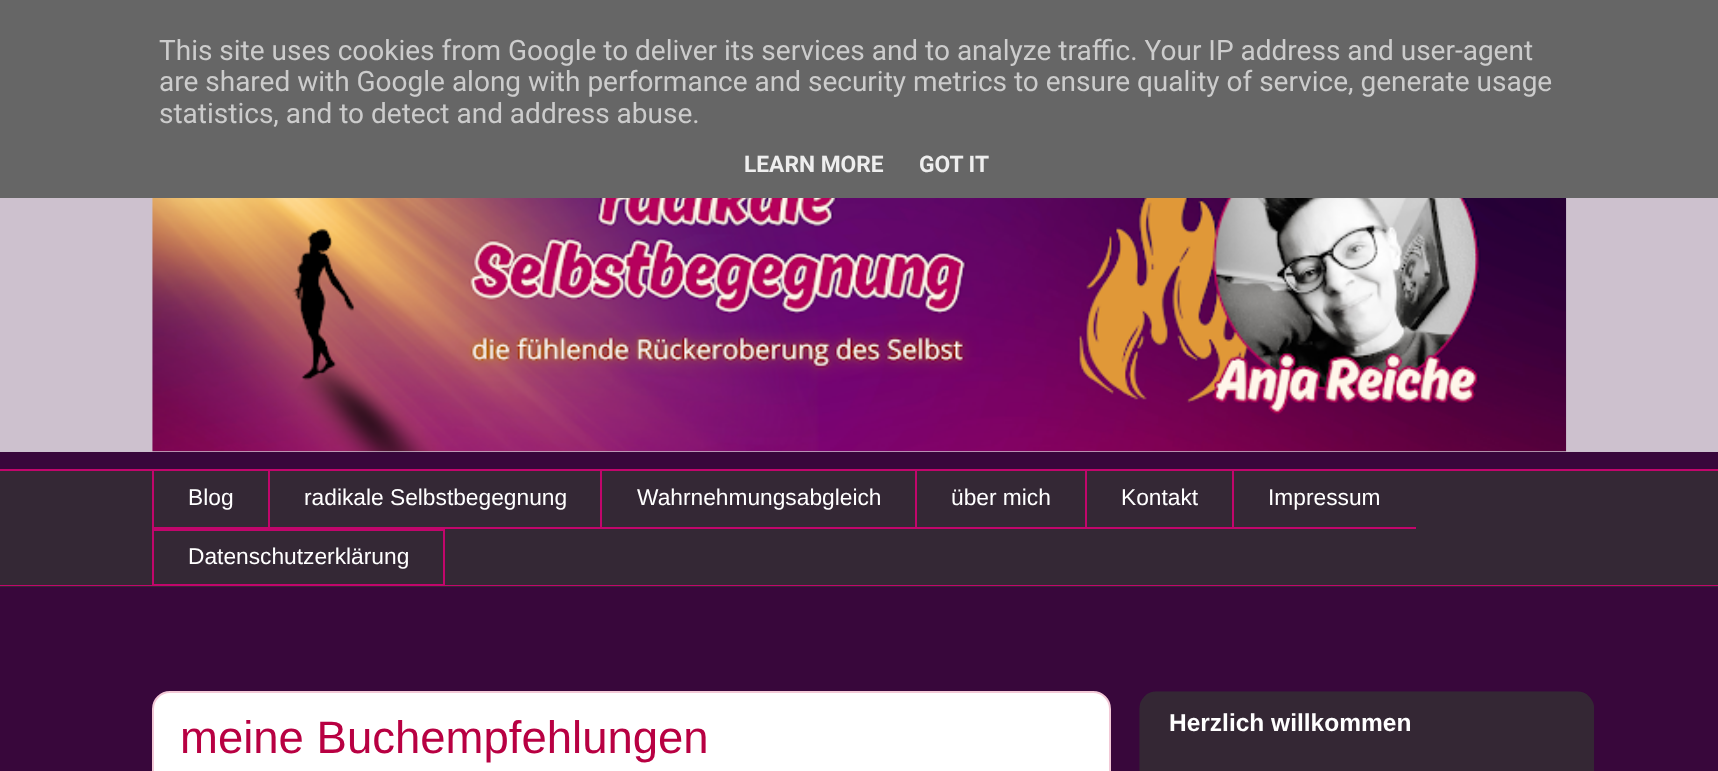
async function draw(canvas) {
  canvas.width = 1718;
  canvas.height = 771;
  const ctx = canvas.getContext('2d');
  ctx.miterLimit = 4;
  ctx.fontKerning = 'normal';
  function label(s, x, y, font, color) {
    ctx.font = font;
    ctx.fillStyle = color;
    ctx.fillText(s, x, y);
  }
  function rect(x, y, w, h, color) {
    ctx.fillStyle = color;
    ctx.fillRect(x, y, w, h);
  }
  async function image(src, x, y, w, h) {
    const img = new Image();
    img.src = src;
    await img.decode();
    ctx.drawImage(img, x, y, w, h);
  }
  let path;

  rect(0, 0, 1718, 771, '#38073b');
  rect(0, 0, 1718, 198, '#666');
  label('This site uses cookies from Google to deliver its services and to analyze traffic. Your IP address and user-agent', 159, 60, '28px Roboto', '#ccc');
  label('are shared with Google along with performance and security metrics to ensure quality of service, generate usage', 159, 91, '28px Roboto', '#ccc');
  label('statistics, and to detect and address abuse.', 159, 123, '28px Roboto', '#ccc');
  label('LEARN MORE', 744, 172, 'bold 22.75px Roboto', '#eee');
  label('GOT IT', 919, 172, 'bold 22.75px Roboto', '#eee');
  rect(0, 198, 1718, 254, '#cdc1ce');
  await image('assets/img1.png', 152, 198, 1415, 254);
  rect(0, 471, 1718, 116, '#342835');
  rect(0, 469, 1718, 2, '#c1066c');
  rect(152, 527, 1264, 2, '#c1066c');
  rect(152, 469, 2, 60, '#c1066c');
  label('Blog', 188, 505, '22.75px Liberation Sans', '#fff');
  rect(268, 469, 2, 60, '#c1066c');
  label('radikale Selbstbegegnung', 304, 505, '22.75px Liberation Sans', '#fff');
  rect(600, 469, 2, 60, '#c1066c');
  label('Wahrnehmungsabgleich', 637, 505, '22.75px Liberation Sans', '#fff');
  rect(915, 469, 2, 60, '#c1066c');
  label('über mich', 951, 505, '22.75px Liberation Sans', '#fff');
  rect(1085, 469, 2, 60, '#c1066c');
  label('Kontakt', 1121, 505, '22.75px Liberation Sans', '#fff');
  rect(1232, 469, 2, 60, '#c1066c');
  label('Impressum', 1268, 505, '22.75px Liberation Sans', '#fff');
  ctx.strokeStyle = '#c1066c';
  ctx.lineWidth = 2;
  ctx.strokeRect(153, 530, 291, 55);
  label('Datenschutzerklärung', 188, 564, '22.75px Liberation Sans', '#fff');
  rect(0, 585, 1718, 1, '#c1066c');
  ctx.fillStyle = '#fff';
  path = new Path2D('M170 692H1093C1102.5 692 1110 699.5 1110 709V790H153V709C153 699.5 160.5 692 170 692Z');
  ctx.fill(path);
  ctx.strokeStyle = '#f3c9d7';
  ctx.stroke(path);
  label('meine Buchempfehlungen', 180, 753, '45.5px Liberation Sans', '#b80042');
  await image('assets/img2.png', 1139, 691, 455, 80);
  label('Herzlich willkommen', 1169, 731, 'bold 24.5px Liberation Sans', '#fff');
}

draw(document.querySelector('canvas'));
